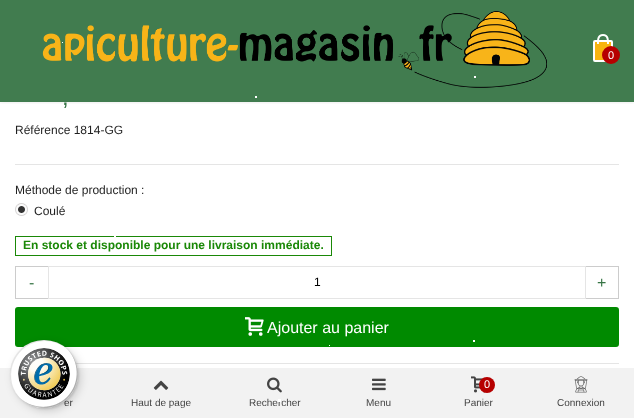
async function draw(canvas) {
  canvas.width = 634;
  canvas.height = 418;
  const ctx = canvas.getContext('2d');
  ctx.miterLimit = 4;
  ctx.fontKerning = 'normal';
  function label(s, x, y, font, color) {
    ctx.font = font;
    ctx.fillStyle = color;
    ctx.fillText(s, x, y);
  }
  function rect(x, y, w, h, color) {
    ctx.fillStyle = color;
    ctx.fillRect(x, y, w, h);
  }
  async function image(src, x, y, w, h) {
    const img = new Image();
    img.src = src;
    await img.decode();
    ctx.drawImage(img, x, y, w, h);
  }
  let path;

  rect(0, 0, 634, 418, '#fff');
  ctx.save();
  ctx.beginPath();
  ctx.rect(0, 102, 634, 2);
  ctx.clip();
  ctx.fillStyle = '#0000001a';
  ctx.filter = 'blur(2px)';
  ctx.beginPath();
  ctx.rect(0, 0, 634, 102);
  ctx.fill();
  ctx.filter = 'none';
  ctx.restore();
  rect(0, 0, 634, 102, '#377546f2');
  await image('assets/img1.png', 42, 11, 505, 77);
  rect(62, 42, 1, 1, '#fff');
  ctx.fillStyle = '#f8b40f';
  ctx.beginPath();
  ctx.roundRect(594, 41, 18, 20, 1);
  ctx.fill();
  ctx.strokeStyle = '#fff';
  ctx.lineWidth = 2;
  ctx.stroke();
  ctx.fillStyle = '#fff';
  path = new Path2D('M603 34C609 34 609 39.5 609 44H597C597 39.5 597 34 603 34ZM603 36C607.5 36 607 41 607 44H599C599 41 598.5 36 603 36Z');
  ctx.fill(path, 'evenodd');
  ctx.fillStyle = '#b60000';
  ctx.beginPath();
  ctx.arc(611, 55, 8, 0, 2 * Math.PI);
  ctx.fill();
  ctx.strokeStyle = '#b60000';
  ctx.stroke();
  label('0', 608, 59, '11px Liberation Sans', '#fff');
  label(',', 62, 105, '24px Liberation Sans', '#377546');
  label('Référence 1814-GG', 15, 134, '12px Liberation Sans', '#1f1f1f');
  rect(15, 164, 604, 1, '#e5e5e5');
  label('Méthode de production :', 15, 194, '12px Liberation Sans', '#1f1f1f');
  await image('assets/img2.png', 15, 203, 13, 13);
  label('Coulé', 34, 215, '12px Liberation Sans', '#1f1f1f');
  ctx.strokeStyle = '#1a8807';
  ctx.lineWidth = 1;
  ctx.strokeRect(15.5, 236.5, 316, 19);
  label('En stock et disponible pour une livraison immédiate.', 23, 249, 'bold 12px Liberation Sans', '#1a8807');
  rect(76, 363, 543, 1, '#e5e5e5');
  rect(15, 266, 33, 1, '#ccc');
  rect(15, 298, 33, 1, '#ccc');
  rect(15, 266, 1, 33, '#ccc');
  label('-', 29, 288, '16px Liberation Sans', '#377546');
  ctx.strokeStyle = '#e5e5e5';
  ctx.strokeRect(48.5, 266.5, 537, 32);
  label('1', 314, 286, '12px Liberation Sans', '#000');
  rect(586, 266, 33, 1, '#ccc');
  rect(618, 266, 1, 33, '#ccc');
  rect(586, 298, 33, 1, '#ccc');
  label('+', 597, 288, '16px Liberation Sans', '#377546');
  ctx.fillStyle = '#008a00';
  ctx.beginPath();
  ctx.roundRect(16, 308, 602, 38, 2);
  ctx.fill();
  ctx.strokeStyle = '#008a00';
  ctx.lineWidth = 2;
  ctx.stroke();
  await image('assets/img3.png', 245, 317, 19, 19);
  label('Ajouter au panier', 267, 333, '16px Liberation Sans', '#fff');
  rect(0, 368, 634, 50, '#f2f2f2');
  label('er', 64, 406, '10px Liberation Sans', '#444');
  await image('assets/img4.png', 153, 380, 16, 10);
  label('Haut de page', 131, 406, '10px Liberation Sans', '#444');
  await image('assets/img5.png', 267, 377, 15, 16);
  label('Rechercher', 249, 406, '10px Liberation Sans', '#444');
  await image('assets/img6.png', 372, 378, 14, 13);
  label('Menu', 366, 406, '10px Liberation Sans', '#444');
  await image('assets/img7.png', 471, 376, 15, 17);
  ctx.fillStyle = '#b60000';
  ctx.beginPath();
  ctx.arc(487, 385, 8, 0, 2 * Math.PI);
  ctx.fill();
  label('0', 484, 388, '11px Liberation Sans', '#fff');
  label('Panier', 464, 406, '10px Liberation Sans', '#444');
  await image('assets/img8.png', 574, 376, 14, 17);
  label('Connexion', 557, 406, '10px Liberation Sans', '#444');
  rect(474, 76, 2, 2, '#fff');
  rect(255, 96, 2, 2, '#fff');
  rect(114, 234, 2, 3, '#fff');
  ctx.fillStyle = '#00000026';
  ctx.filter = 'blur(4px)';
  ctx.beginPath();
  ctx.roundRect(13, 343, 68, 68, 34);
  ctx.fill();
  ctx.filter = 'none';
  ctx.filter = 'blur(1px)';
  ctx.beginPath();
  ctx.roundRect(11, 341, 68, 68, 34);
  ctx.fill();
  ctx.filter = 'none';
  ctx.fillStyle = '#fff';
  ctx.beginPath();
  ctx.arc(44, 374, 34, 0, 2 * Math.PI);
  ctx.fill();
  ctx.fillStyle = '#0000001a';
  path = new Path2D('M45 341C53 341 61 344 67 349C53 337 33 337 20 350C7 363 7 383 19 397C1 375 16 341 45 341Z');
  ctx.fill(path);
  ctx.fillStyle = '#00000033';
  path = new Path2D('M21 399C35 411 55 411 68 398C81 385 81 365 69 351C80 365 79 385 67 397C55 409 35 410 21 399Z');
  ctx.fill(path);
  ctx.fillStyle = '#32323233';
  path = new Path2D('M17 395C30 411 54 412 68 398C82 384 81 360 65 347C80 360 81 383 67 397C53 411 30 410 17 395Z');
  ctx.fill(path);
  ctx.fillStyle = '#ffffff4d';
  path = new Path2D('M44 340C63 340 78 355 78 374C78 355 62 340 44 340ZM44 408C63 408 78 393 78 374C78 392 62 408 44 408ZM10 374C10 393 25 408 44 408C25 408 10 392 10 374Z');
  ctx.fill(path, 'evenodd');
  await image('assets/img9.png', 18, 348, 52, 52);
  rect(473, 340, 2, 2, '#fff');
  rect(329, 345, 1, 1, '#fff');
  rect(278, 399, 3, 3, '#fff');
}

draw(document.querySelector('canvas'));
